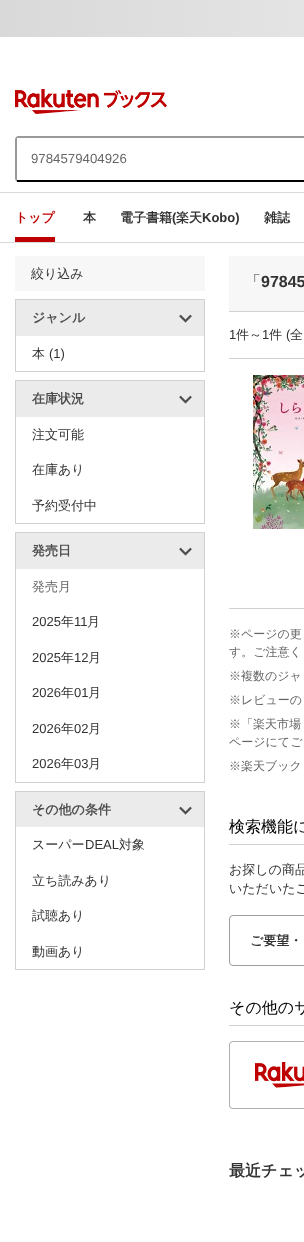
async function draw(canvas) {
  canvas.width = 304;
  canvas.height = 1242;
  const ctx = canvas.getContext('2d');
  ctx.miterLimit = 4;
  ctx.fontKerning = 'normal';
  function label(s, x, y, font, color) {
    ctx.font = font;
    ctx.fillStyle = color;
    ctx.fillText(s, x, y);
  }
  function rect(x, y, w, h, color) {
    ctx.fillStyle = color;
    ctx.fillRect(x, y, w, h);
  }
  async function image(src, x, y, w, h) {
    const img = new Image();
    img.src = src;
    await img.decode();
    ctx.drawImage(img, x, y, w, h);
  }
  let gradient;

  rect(0, 0, 304, 1242, '#fff');
  gradient = ctx.createLinearGradient(0, 19, 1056, 18);
  gradient.addColorStop(0, '#d9d9d9');
  gradient.addColorStop(0.5, '#ececec');
  gradient.addColorStop(1, '#d9d9d9');
  ctx.fillStyle = gradient;
  ctx.fillRect(0, 0, 304, 37);
  rect(0, 242, 304, 1, '#d9d9d9');
  await image('assets/img1.png', 15, 89, 152, 25);
  ctx.beginPath();
  ctx.roundRect(16, 137, 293, 44, 3);
  ctx.strokeStyle = '#999';
  ctx.lineWidth = 2;
  ctx.stroke();
  rect(17, 138, 2, 42, '#fff');
  label('9784579404926', 31, 163, '13.25px Liberation Sans', '#666');
  rect(17, 180, 287, 2, '#000');
  rect(0, 192, 304, 1, '#d9d9d9');
  label('トップ', 15, 222, 'bold 13px WenQuanYi Zen Hei', '#bf0000');
  rect(15, 237, 40, 5, '#bf0000');
  label('本', 83, 222, 'bold 13px WenQuanYi Zen Hei', '#333');
  label('電子書籍', 120, 222, 'bold 13px WenQuanYi Zen Hei', '#333');
  label('(', 172, 222, 'bold 13px Liberation Sans', '#333');
  label('楽天', 176, 222, 'bold 13px WenQuanYi Zen Hei', '#333');
  label('Kobo)', 202, 222, 'bold 13px Liberation Sans', '#333');
  label('雑誌', 264, 222, 'bold 13px WenQuanYi Zen Hei', '#333');
  rect(15, 256, 190, 35, '#f7f7f7');
  label('絞り込み', 31, 278, '500 13px WenQuanYi Zen Hei', '#333');
  ctx.strokeStyle = '#d1d1d1';
  ctx.lineWidth = 1;
  ctx.strokeRect(15.5, 299.5, 189, 72);
  rect(16, 300, 188, 36, '#ebebeb');
  label('ジャンル', 32, 322, 'bold 13px WenQuanYi Zen Hei', '#4d4d4d');
  await image('assets/img2.png', 179, 314, 13, 9);
  label('本', 32, 358, '500 13px WenQuanYi Zen Hei', '#333');
  label('(1)', 49, 358, '13px Liberation Sans', '#333');
  ctx.strokeRect(15.5, 380.5, 189, 143);
  rect(16, 381, 188, 36, '#ebebeb');
  label('在庫状況', 32, 403, 'bold 13px WenQuanYi Zen Hei', '#4d4d4d');
  await image('assets/img2.png', 179, 395, 13, 9);
  label('注文可能', 32, 439, '500 13px WenQuanYi Zen Hei', '#333');
  label('在庫あり', 32, 474, '500 13px WenQuanYi Zen Hei', '#333');
  label('予約受付中', 32, 510, '500 13px WenQuanYi Zen Hei', '#333');
  ctx.strokeRect(15.5, 532.5, 189, 250);
  rect(16, 533, 188, 36, '#ebebeb');
  label('発売日', 32, 555, 'bold 13px WenQuanYi Zen Hei', '#4d4d4d');
  await image('assets/img2.png', 179, 547, 13, 9);
  label('発売月', 32, 591, '500 13px WenQuanYi Zen Hei', '#666');
  label('2025', 32, 626, '13px Liberation Sans', '#333');
  label('年', 61, 626, '500 13px WenQuanYi Zen Hei', '#333');
  label('11', 74, 626, '13px Liberation Sans', '#333');
  label('月', 87, 626, '500 13px WenQuanYi Zen Hei', '#333');
  label('2025', 32, 662, '13px Liberation Sans', '#333');
  label('年', 61, 662, '500 13px WenQuanYi Zen Hei', '#333');
  label('12', 74, 662, '13px Liberation Sans', '#333');
  label('月', 88, 662, '500 13px WenQuanYi Zen Hei', '#333');
  label('2026', 32, 697, '13px Liberation Sans', '#333');
  label('年', 61, 697, '500 13px WenQuanYi Zen Hei', '#333');
  label('01', 74, 697, '13px Liberation Sans', '#333');
  label('月', 88, 697, '500 13px WenQuanYi Zen Hei', '#333');
  label('2026', 32, 733, '13px Liberation Sans', '#333');
  label('年', 61, 733, '500 13px WenQuanYi Zen Hei', '#333');
  label('02', 74, 733, '13px Liberation Sans', '#333');
  label('月', 88, 733, '500 13px WenQuanYi Zen Hei', '#333');
  label('2026', 32, 768, '13px Liberation Sans', '#333');
  label('年', 61, 768, '500 13px WenQuanYi Zen Hei', '#333');
  label('03', 74, 768, '13px Liberation Sans', '#333');
  label('月', 88, 768, '500 13px WenQuanYi Zen Hei', '#333');
  ctx.strokeRect(15.5, 791.5, 189, 178);
  rect(16, 792, 188, 35, '#ebebeb');
  label('その他の条件', 32, 814, 'bold 13px WenQuanYi Zen Hei', '#4d4d4d');
  await image('assets/img2.png', 179, 806, 13, 9);
  label('スーパー', 32, 849, '500 13px WenQuanYi Zen Hei', '#333');
  label('DEAL', 85, 849, '13px Liberation Sans', '#333');
  label('対象', 119, 849, '500 13px WenQuanYi Zen Hei', '#333');
  label('立ち読みあり', 32, 885, '500 13px WenQuanYi Zen Hei', '#333');
  label('試聴あり', 32, 920, '500 13px WenQuanYi Zen Hei', '#333');
  label('動画あり', 32, 956, '500 13px WenQuanYi Zen Hei', '#333');
  rect(229, 256, 75, 55, '#f7f7f7');
  label('「', 245, 287, '500 16px WenQuanYi Zen Hei', '#333');
  label('97845', 261, 287, 'bold 16px Liberation Sans', '#333');
  rect(229, 311, 75, 1, '#d1d1d1');
  rect(229, 358, 75, 1, '#d1d1d1');
  label('1', 229, 339, '13px Liberation Sans', '#333');
  label('件～', 236, 339, '500 13px WenQuanYi Zen Hei', '#333');
  label('1', 262, 339, '13px Liberation Sans', '#333');
  label('件', 269, 339, '500 13px WenQuanYi Zen Hei', '#333');
  label('(', 286, 339, '13px Liberation Sans', '#333');
  label('全', 290, 339, '500 13px WenQuanYi Zen Hei', '#333');
  rect(229, 608, 75, 1, '#d1d1d1');
  await image('assets/img3.png', 253, 375, 51, 154);
  label('※ページの更', 229, 638, '500 12px WenQuanYi Zen Hei', '#666');
  label('す。ご注意く', 229, 656, '500 12px WenQuanYi Zen Hei', '#666');
  label('※複数のジャ', 229, 680, '500 12px WenQuanYi Zen Hei', '#666');
  label('※レビューの', 229, 704, '500 12px WenQuanYi Zen Hei', '#666');
  label('※「楽天市場', 229, 728, '500 12px WenQuanYi Zen Hei', '#666');
  label('ページにてご', 229, 746, '500 12px WenQuanYi Zen Hei', '#666');
  label('※楽天ブック', 229, 770, '500 12px WenQuanYi Zen Hei', '#666');
  rect(229, 844, 75, 1, '#d1d1d1');
  label('検索機能に', 229, 832, '500 16px WenQuanYi Zen Hei', '#000');
  label('お探しの商品', 229, 874, '500 13px WenQuanYi Zen Hei', '#333');
  label('いただいたご', 229, 893, '500 13px WenQuanYi Zen Hei', '#333');
  ctx.beginPath();
  ctx.roundRect(229.5, 915.5, 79, 50, 3.5);
  ctx.strokeStyle = '#9e9e9e';
  ctx.stroke();
  label('ご要望・', 250, 945, 'bold 13px WenQuanYi Zen Hei', '#333');
  rect(229, 1025, 75, 1, '#d1d1d1');
  label('その他のサ', 229, 1013, '500 16px WenQuanYi Zen Hei', '#000');
  await image('assets/img4.png', 229, 1041, 75, 68);
  label('最近チェッ', 229, 1176, 'bold 16px WenQuanYi Zen Hei', '#333');
}

draw(document.querySelector('canvas'));
